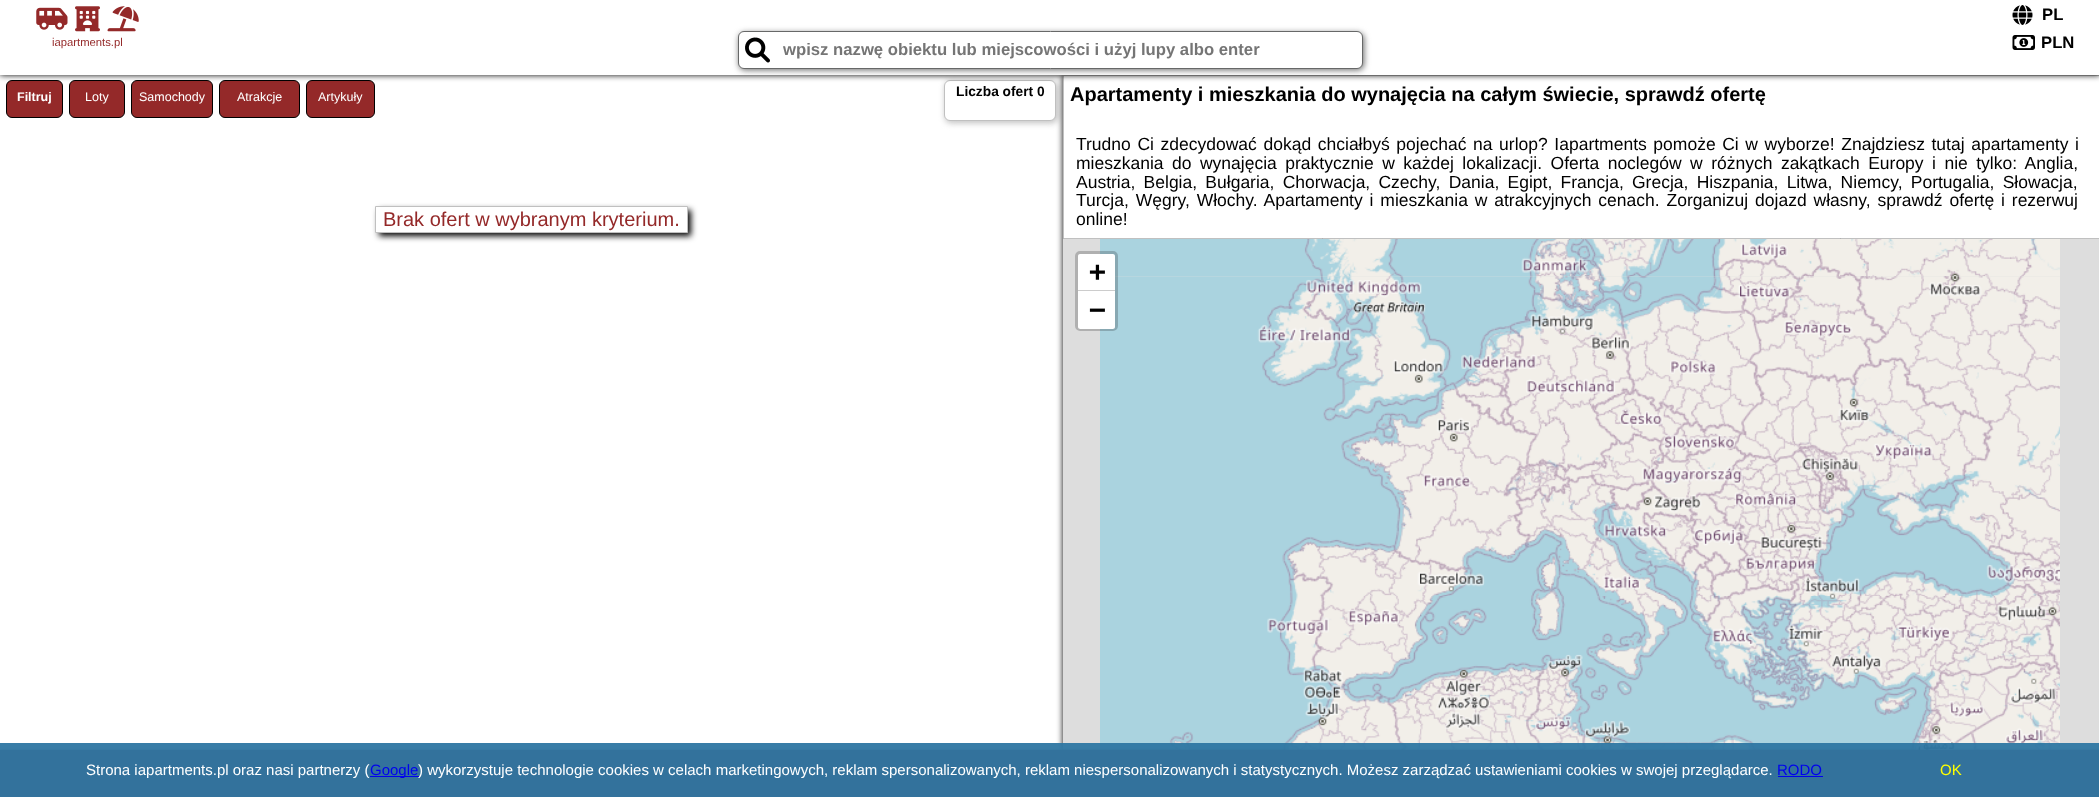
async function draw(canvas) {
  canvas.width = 2099;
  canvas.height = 797;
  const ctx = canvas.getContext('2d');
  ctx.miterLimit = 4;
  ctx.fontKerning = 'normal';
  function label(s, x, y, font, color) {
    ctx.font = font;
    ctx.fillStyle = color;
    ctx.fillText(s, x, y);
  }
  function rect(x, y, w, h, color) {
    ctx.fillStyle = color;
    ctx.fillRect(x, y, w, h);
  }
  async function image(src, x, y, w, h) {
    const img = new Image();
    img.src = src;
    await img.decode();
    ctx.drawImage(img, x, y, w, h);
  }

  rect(0, 0, 2099, 797, '#fff');
  ctx.fillStyle = '#942929';
  ctx.beginPath();
  ctx.roundRect(6.5, 80.5, 56, 37, 5.5);
  ctx.fill();
  ctx.strokeStyle = '#000';
  ctx.stroke();
  ctx.beginPath();
  ctx.roundRect(69.5, 80.5, 55, 37, 5.5);
  ctx.fill();
  ctx.stroke();
  ctx.beginPath();
  ctx.roundRect(131.5, 80.5, 81, 37, 5.5);
  ctx.fill();
  ctx.stroke();
  ctx.beginPath();
  ctx.roundRect(219.5, 80.5, 80, 37, 5.5);
  ctx.fill();
  ctx.stroke();
  ctx.beginPath();
  ctx.roundRect(306.5, 80.5, 68, 37, 5.5);
  ctx.fill();
  ctx.stroke();
  ctx.fillStyle = '#c0c0c0';
  ctx.filter = 'blur(3px)';
  ctx.beginPath();
  ctx.roundRect(945, 81, 113, 42, 6);
  ctx.fill();
  ctx.filter = 'none';
  ctx.fillStyle = '#fff';
  ctx.beginPath();
  ctx.roundRect(944.5, 80.5, 111, 40, 5.5);
  ctx.fill();
  ctx.strokeStyle = '#c0c0c0';
  ctx.stroke();
  ctx.fillStyle = '#000';
  ctx.filter = 'blur(3px)';
  ctx.beginPath();
  ctx.rect(1063, 75, 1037, 675);
  ctx.fill();
  ctx.filter = 'none';
  ctx.fillStyle = '#fff';
  ctx.beginPath();
  ctx.rect(1063.5, 75.5, 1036, 163);
  ctx.fill();
  ctx.stroke();
  ctx.fillStyle = '#000';
  ctx.filter = 'blur(3px)';
  ctx.beginPath();
  ctx.rect(0, 0, 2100, 75);
  ctx.fill();
  ctx.filter = 'none';
  rect(0, 0, 2099, 75, '#fff');
  await image('assets/img1.png', 2012, 5, 21, 20);
  label('PL', 2042, 20, 'bold 16.7px Liberation Sans', '#000');
  await image('assets/img2.png', 36, 7, 32, 23);
  await image('assets/img3.png', 75, 6, 25, 26);
  await image('assets/img4.png', 107, 6, 32, 26);
  label('iapartments.pl', 52, 46, '11.25px Liberation Sans', '#942929');
  ctx.fillStyle = '#676868';
  ctx.filter = 'blur(3px)';
  ctx.beginPath();
  ctx.roundRect(739, 33, 625, 37, 6);
  ctx.fill();
  ctx.filter = 'none';
  ctx.fillStyle = '#fff';
  ctx.beginPath();
  ctx.roundRect(738.5, 31.5, 624, 37, 5.5);
  ctx.fill();
  ctx.strokeStyle = '#676868';
  ctx.stroke();
  await image('assets/img5.png', 745, 37, 25, 26);
  label('wpisz nazwę obiektu lub miejscowości i użyj lupy albo enter', 783, 55, 'bold 16.7px Liberation Sans', '#757575');
  await image('assets/img6.png', 2012, 35, 23, 15);
  label('PLN', 2041, 48, 'bold 16.7px Liberation Sans', '#000');
  label('Filtruj', 17, 101, 'bold 12.5px Liberation Sans', '#fff');
  label('Loty', 85, 101, '12.5px Liberation Sans', '#fff');
  label('Samochody', 139, 101, '12.5px Liberation Sans', '#fff');
  label('Atrakcje', 237, 101, '12.5px Liberation Sans', '#fff');
  label('Artykuły', 318, 101, '12.5px Liberation Sans', '#fff');
  label('Liczba ofert 0', 956, 96, 'bold 13.75px Liberation Sans', '#000');
  ctx.filter = 'blur(3px)';
  ctx.beginPath();
  ctx.rect(379, 210, 312, 26);
  ctx.fill();
  ctx.filter = 'none';
  ctx.fillStyle = '#fff';
  ctx.beginPath();
  ctx.rect(375.5, 206.5, 312, 26);
  ctx.fill();
  ctx.strokeStyle = '#c0c0c0';
  ctx.stroke();
  label('Brak ofert w wybranym kryterium.', 383, 226, '20px Liberation Sans', '#942929');
  label('Apartamenty i mieszkania do wynajęcia na całym świecie, sprawdź ofertę', 1070, 101, 'bold 20px Liberation Sans', '#000');
  ctx.wordSpacing = '1.75px';
  label('Trudno Ci zdecydować dokąd chciałbyś pojechać na urlop? Iapartments pomoże Ci w wyborze! Znajdziesz tutaj apartamenty i', 1076, 150, '17.5px Liberation Sans', '#000');
  ctx.wordSpacing = '3.6px';
  label('mieszkania do wynajęcia praktycznie w każdej lokalizacji. Oferta noclegów w różnych zakątkach Europy i nie tylko: Anglia,', 1076, 169, '17.5px Liberation Sans', '#000');
  ctx.wordSpacing = '3.4px';
  label('Austria, Belgia, Bułgaria, Chorwacja, Czechy, Dania, Egipt, Francja, Grecja, Hiszpania, Litwa, Niemcy, Portugalia, Słowacja,', 1076, 188, '17.5px Liberation Sans', '#000');
  ctx.wordSpacing = '2px';
  label('Turcja, Węgry, Włochy. Apartamenty i mieszkania w atrakcyjnych cenach. Zorganizuj dojazd własny, sprawdź ofertę i rezerwuj', 1076, 206, '17.5px Liberation Sans', '#000');
  ctx.wordSpacing = '0px';
  label('online!', 1076, 225, '17.5px Liberation Sans', '#000');
  rect(1063, 239, 1036, 511, '#ddd');
  await image('assets/img7.png', 1100, 239, 320, 37);
  await image('assets/img10.png', 1100, 276, 320, 320);
  ctx.beginPath();
  ctx.roundRect(1076.5, 252.5, 40, 77, 3.5);
  ctx.strokeStyle = '#00000033';
  ctx.lineWidth = 3;
  ctx.stroke();
  ctx.fillStyle = '#fff';
  ctx.beginPath();
  ctx.roundRect(1078, 254, 37, 37, [2.5, 2.5, 0, 0]);
  ctx.fill();
  rect(1078, 290, 37, 1, '#ccc');
  label('+', 1089, 281, 'bold 28px DejaVu Sans Mono', '#000');
  ctx.fillStyle = '#fff';
  ctx.beginPath();
  ctx.roundRect(1078, 291, 37, 38, [0, 0, 2.5, 2.5]);
  ctx.fill();
  label('−', 1089, 319, 'bold 28px DejaVu Sans Mono', '#000');
  await image('assets/img8.png', 1420, 239, 320, 37);
  await image('assets/img9.png', 1740, 239, 320, 37);
  await image('assets/img11.png', 1420, 276, 320, 320);
  await image('assets/img12.png', 1740, 276, 320, 320);
  await image('assets/img13.png', 1100, 596, 320, 154);
  await image('assets/img14.png', 1420, 596, 320, 154);
  await image('assets/img15.png', 1740, 596, 320, 154);
  ctx.fillStyle = '#942929';
  ctx.filter = 'blur(1px)';
  ctx.beginPath();
  ctx.rect(0, 750, 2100, 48);
  ctx.fill();
  ctx.filter = 'none';
  rect(0, 750, 2099, 47, '#942929');
  rect(0, 743, 2099, 54, '#2d76a2f2');
  label('Strona iapartments.pl oraz nasi partnerzy (', 86, 775, '15px Liberation Sans', '#fff');
  rect(370, 776, 49, 1, '#00e');
  label('Google', 370, 775, '15px Liberation Sans', '#00e');
  label(') wykorzystuje technologie cookies w celach marketingowych, reklam spersonalizowanych, reklam niespersonalizowanych i statystycznych. Możesz zarządzać ustawieniami cookies w swojej przeglądarce.', 418, 775, '15px Liberation Sans', '#fff');
  label('RODO', 1777, 775, '15px Liberation Sans', '#00e');
  rect(1778, 776, 45, 1, '#00e');
  label('OK', 1940, 775, '15px Liberation Sans', '#ff0');
}

draw(document.querySelector('canvas'));
